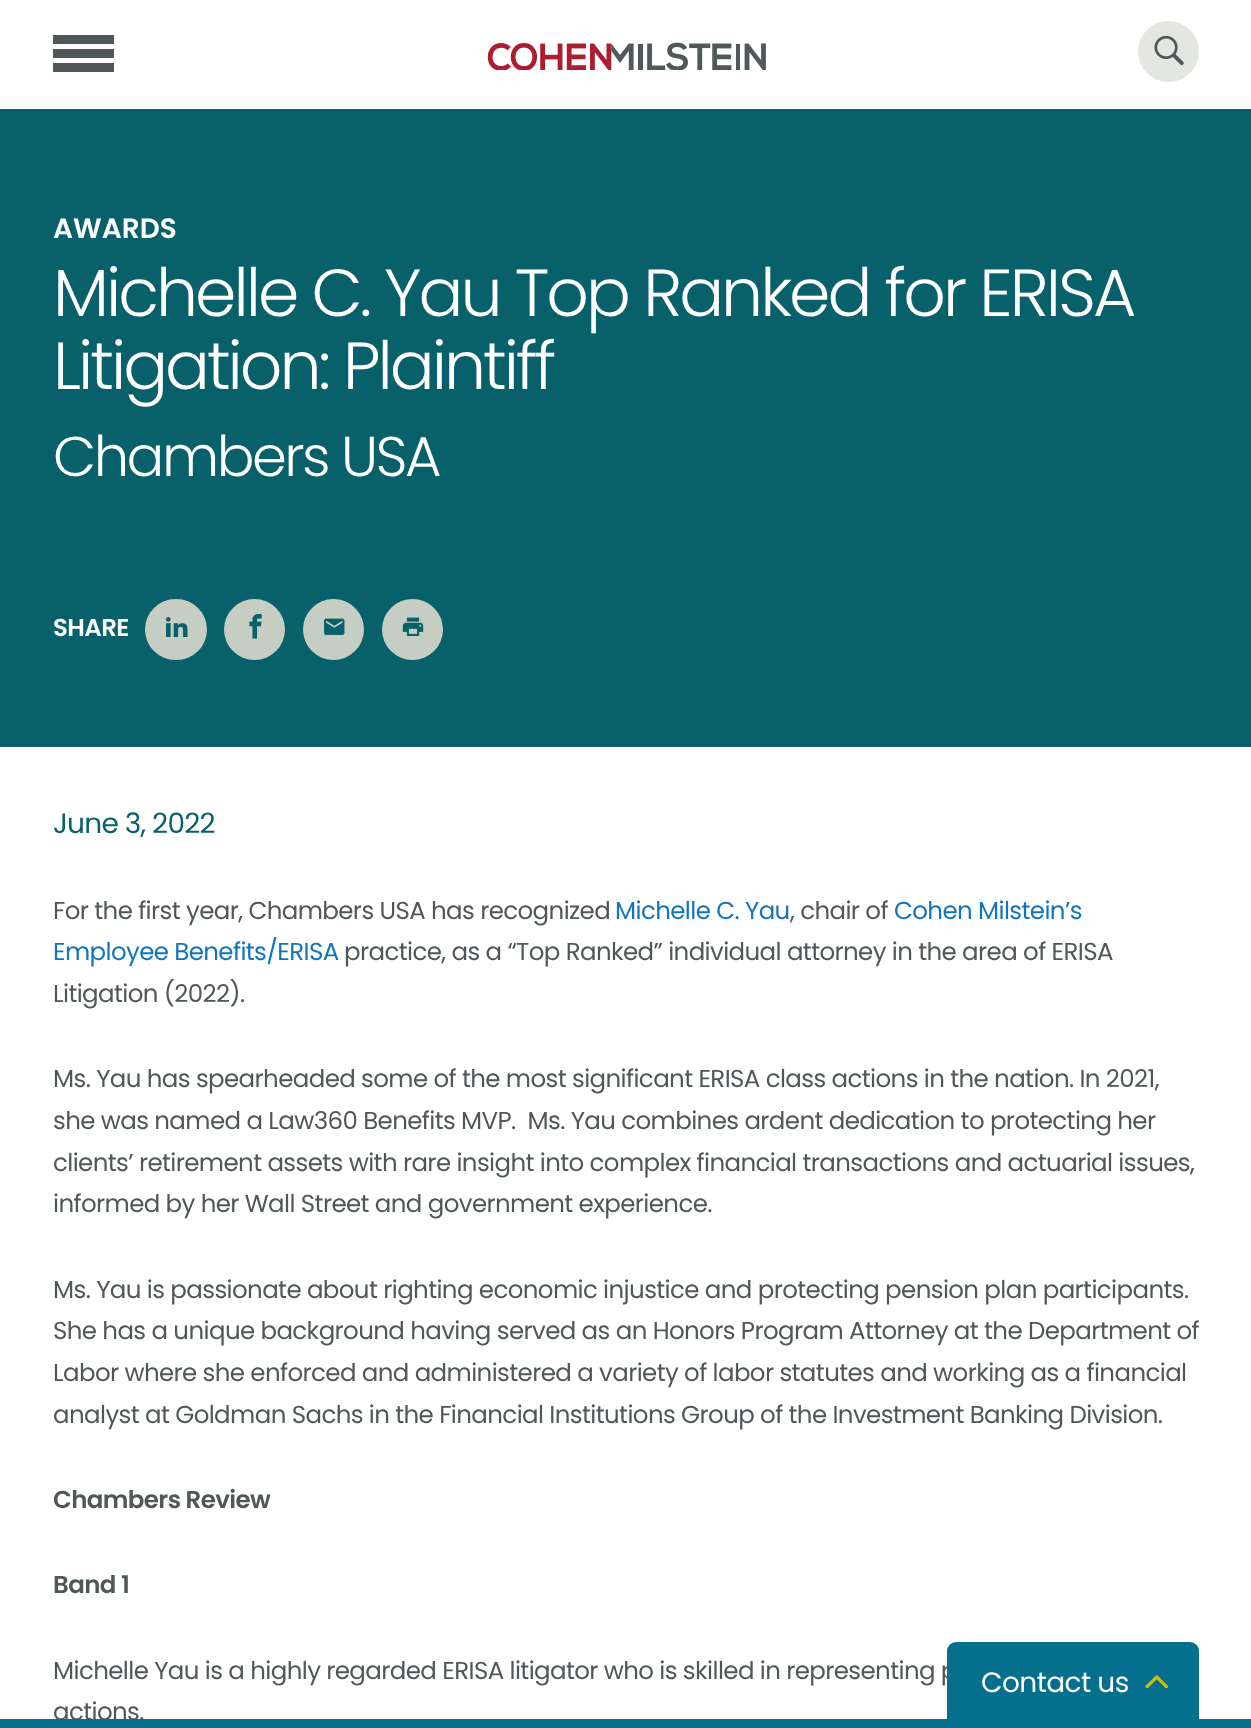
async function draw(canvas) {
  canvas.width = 1251;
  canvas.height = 1728;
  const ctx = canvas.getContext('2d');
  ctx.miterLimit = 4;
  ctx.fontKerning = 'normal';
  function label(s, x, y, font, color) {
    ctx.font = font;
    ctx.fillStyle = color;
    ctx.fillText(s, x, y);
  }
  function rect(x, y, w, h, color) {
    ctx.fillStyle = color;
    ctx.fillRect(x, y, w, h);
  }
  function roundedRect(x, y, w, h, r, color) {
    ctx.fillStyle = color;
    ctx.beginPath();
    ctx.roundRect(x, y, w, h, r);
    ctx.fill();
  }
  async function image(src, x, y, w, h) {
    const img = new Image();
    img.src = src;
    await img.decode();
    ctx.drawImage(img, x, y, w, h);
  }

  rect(0, 0, 1251, 1728, '#fff');
  rect(53, 35, 61, 9, '#505759');
  rect(53, 49, 61, 9, '#505759');
  rect(53, 63, 61, 9, '#505759');
  await image('assets/img1.png', 487, 42, 279, 28);
  ctx.fillStyle = '#e3e6e1';
  ctx.beginPath();
  ctx.arc(1168.5, 51.5, 30.5, 0, 2 * Math.PI);
  ctx.fill();
  await image('assets/img2.png', 1154, 35, 30, 31);
  rect(0, 109, 1251, 638, '#08616a');
  label('AWARDS', 53, 238, '600 28px Poppins', '#fff');
  ctx.letterSpacing = '-3px';
  label('Michelle C. Yau Top Ranked for ERISA', 53, 316, '300 66.5px Poppins', '#fff');
  label('Litigation: Plaintiff', 53, 389, '300 66.5px Poppins', '#fff');
  ctx.letterSpacing = '-2.5px';
  label('Chambers USA', 53, 476, '300 56px Poppins', '#fff');
  ctx.letterSpacing = '-0.61px';
  label('SHARE', 53, 636, '600 24.5px Poppins', '#fff');
  roundedRect(145, 599, 62, 61, 30.5, '#c6cdc2');
  await image('assets/img3.png', 166, 617, 22, 20);
  ctx.beginPath();
  ctx.arc(254.5, 629.5, 30.5, 0, 2 * Math.PI);
  ctx.fill();
  await image('assets/img4.png', 249, 614, 13, 25);
  ctx.beginPath();
  ctx.arc(333.5, 629.5, 30.5, 0, 2 * Math.PI);
  ctx.fill();
  await image('assets/img5.png', 324, 618, 21, 17);
  ctx.beginPath();
  ctx.arc(412.5, 629.5, 30.5, 0, 2 * Math.PI);
  ctx.fill();
  await image('assets/img6.png', 402, 617, 22, 19);
  ctx.letterSpacing = '-0.75px';
  label('June 3, 2022', 53, 833, '28px Poppins', '#08616a');
  ctx.letterSpacing = '-0.61px';
  label('For the first year, Chambers USA has recognized', 53, 919, '24.5px Poppins', '#505759');
  label('Michelle C. Yau', 615, 919, '24.5px Poppins', '#1275bc');
  label(', chair of', 790, 919, '24.5px Poppins', '#505759');
  label('Cohen Milstein’s', 894, 919, '24.5px Poppins', '#1275bc');
  label('Employee Benefits/ERISA', 53, 960, '24.5px Poppins', '#1275bc');
  label('practice, as a “Top Ranked” individual attorney in the area of ERISA', 344, 960, '24.5px Poppins', '#505759');
  label('Litigation (2022).', 53, 1002, '24.5px Poppins', '#505759');
  label('Ms. Yau has spearheaded some of the most significant ERISA class actions in the nation. In 2021,', 53, 1087, '24.5px Poppins', '#505759');
  label('she was named a Law360 Benefits MVP.  Ms. Yau combines ardent dedication to protecting her', 53, 1129, '24.5px Poppins', '#505759');
  label('clients’ retirement assets with rare insight into complex financial transactions and actuarial issues,', 53, 1171, '24.5px Poppins', '#505759');
  label('informed by her Wall Street and government experience.', 53, 1212, '24.5px Poppins', '#505759');
  label('Ms. Yau is passionate about righting economic injustice and protecting pension plan participants.', 53, 1298, '24.5px Poppins', '#505759');
  label('She has a unique background having served as an Honors Program Attorney at the Department of', 53, 1339, '24.5px Poppins', '#505759');
  label('Labor where she enforced and administered a variety of labor statutes and working as a financial', 53, 1381, '24.5px Poppins', '#505759');
  label('analyst at Goldman Sachs in the Financial Institutions Group of the Investment Banking Division.', 53, 1423, '24.5px Poppins', '#505759');
  label('Chambers Review', 53, 1508, '600 24.5px Poppins', '#505759');
  label('Band 1', 53, 1593, '600 24.5px Poppins', '#505759');
  label('Michelle Yau is a highly regarded ERISA litigator who is skilled in representing p', 53, 1679, '24.5px Poppins', '#505759');
  label('actions.', 53, 1720, '24.5px Poppins', '#505759');
  ctx.fillStyle = '#05708e';
  ctx.beginPath();
  ctx.roundRect(947, 1642, 252, 77, [9, 9, 0, 0]);
  ctx.fill();
  label('Contact us', 981, 1692, '28px Poppins', '#fff');
  await image('assets/img7.png', 1145, 1675, 23, 14);
  rect(0, 1719, 1251, 9, '#05708e');
}

draw(document.querySelector('canvas'));
